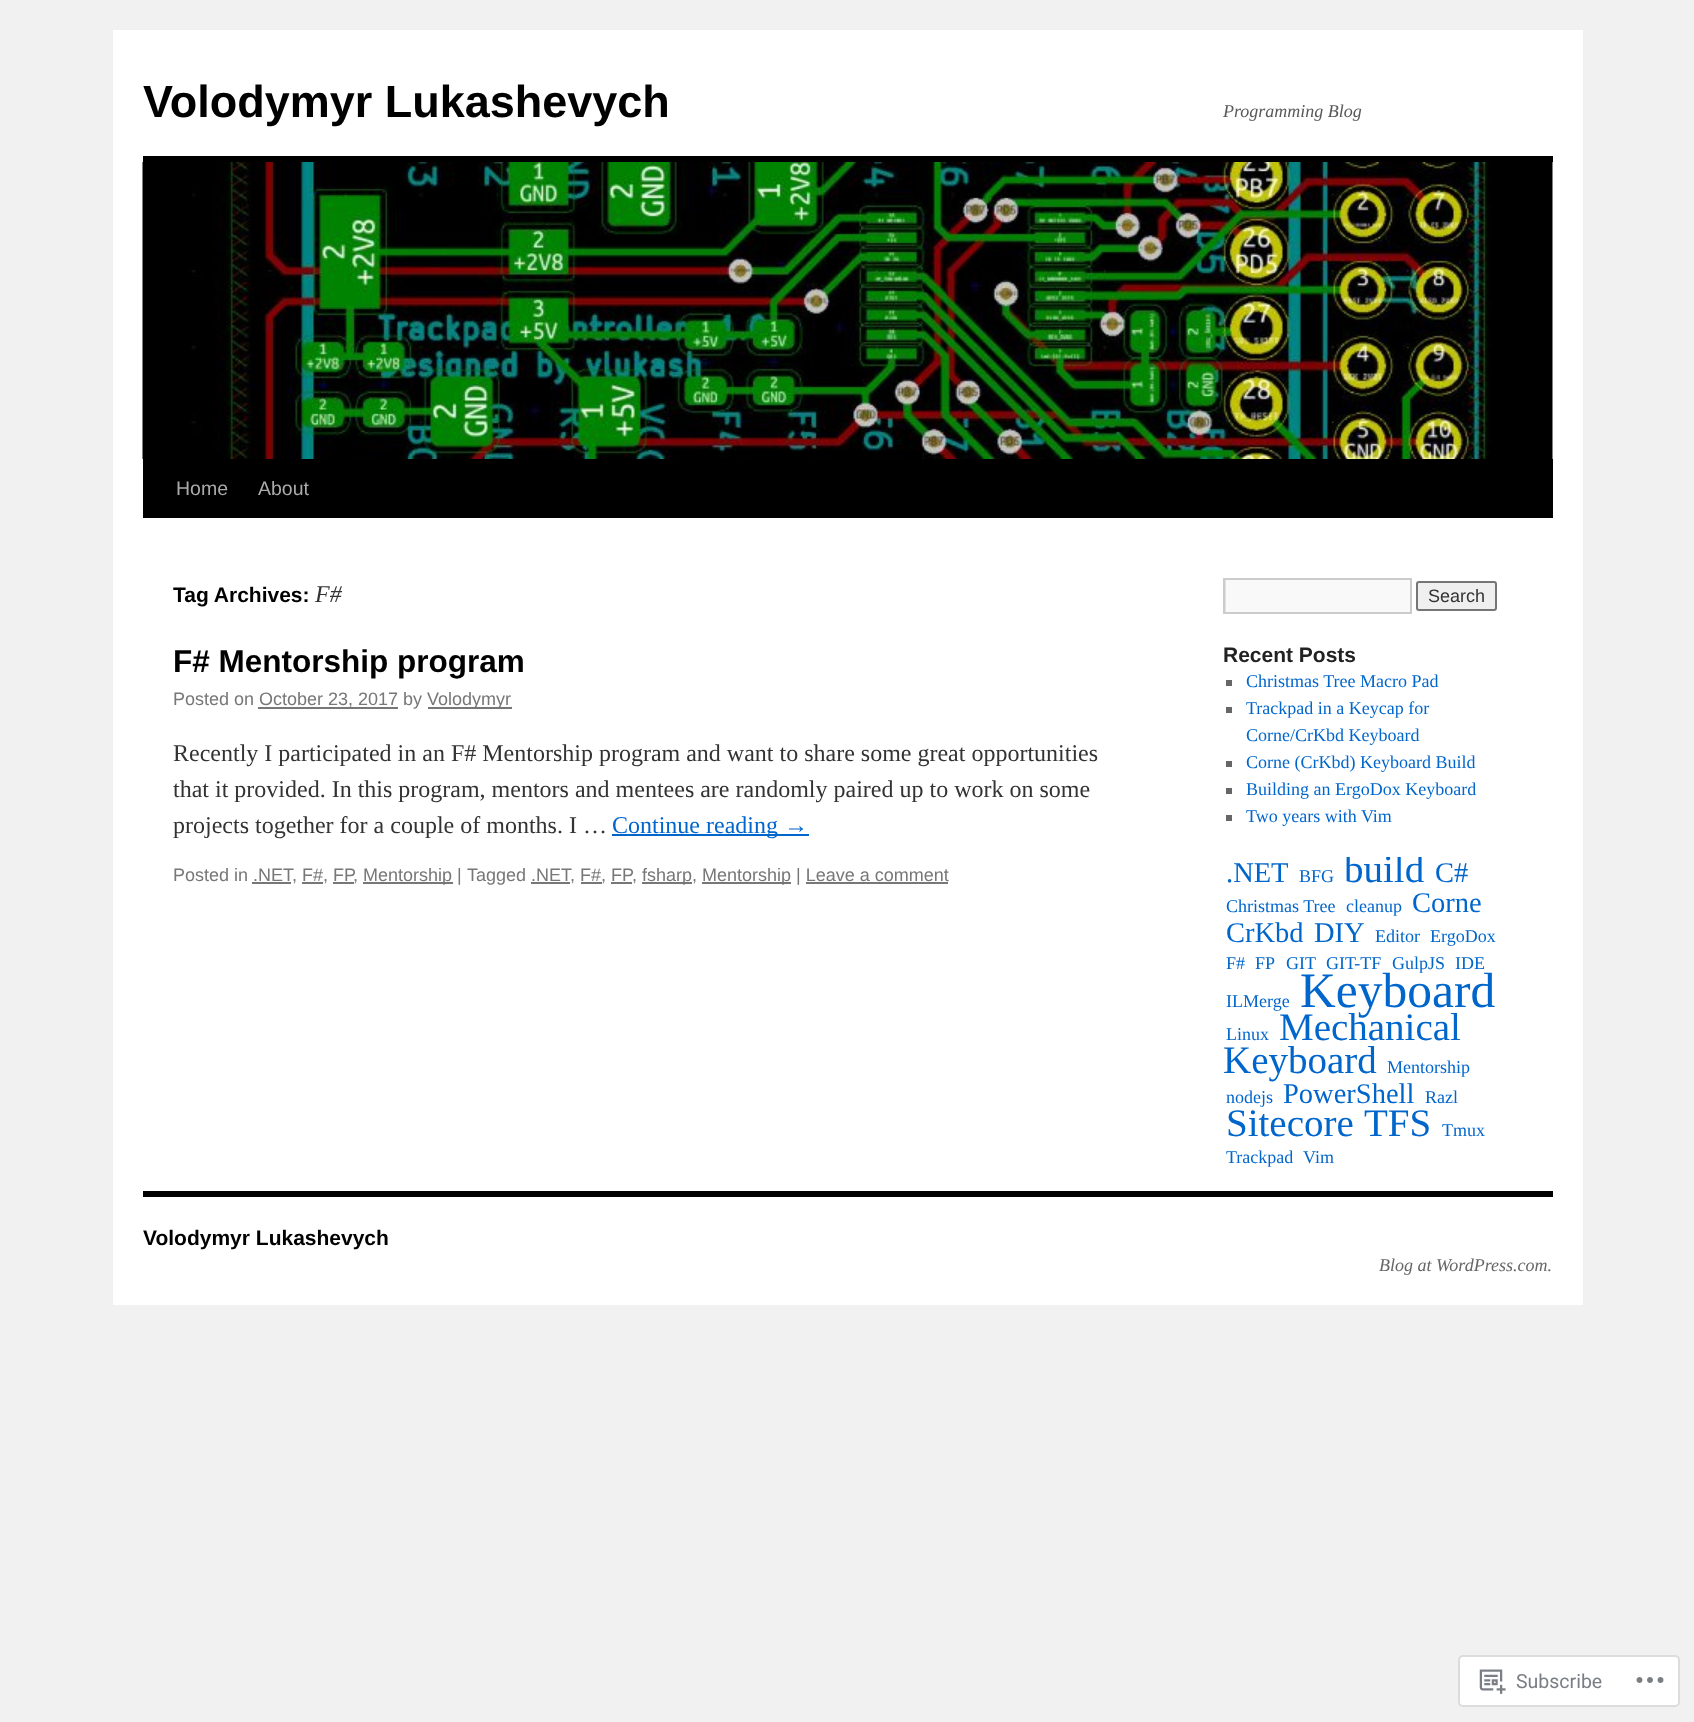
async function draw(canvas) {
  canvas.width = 1694;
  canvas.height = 1722;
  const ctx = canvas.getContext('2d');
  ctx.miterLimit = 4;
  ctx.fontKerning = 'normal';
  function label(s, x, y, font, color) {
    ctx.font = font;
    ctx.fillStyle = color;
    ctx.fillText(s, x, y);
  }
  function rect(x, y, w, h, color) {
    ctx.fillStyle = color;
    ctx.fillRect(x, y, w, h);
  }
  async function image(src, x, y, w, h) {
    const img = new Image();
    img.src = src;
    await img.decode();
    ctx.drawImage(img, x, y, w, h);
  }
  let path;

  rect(0, 0, 1694, 1722, '#f1f1f1');
  rect(113, 30, 1470, 1275, '#fff');
  label('Volodymyr Lukashevych', 143, 117, 'bold 45px Liberation Sans', '#000');
  label('Programming Blog', 1223, 117, 'italic 18px Liberation Serif', '#595959');
  rect(143, 156, 1410, 6, '#000');
  rect(143, 459, 1410, 59, '#000');
  await image('assets/img1.png', 142, 162, 1411, 297);
  label('Home', 176, 495, '19.5px Liberation Sans', '#aaa');
  label('About', 258, 495, '19.5px Liberation Sans', '#aaa');
  label('Tag Archives:', 173, 602, 'bold 21px Liberation Sans', '#000');
  label('F#', 315, 602, 'italic 24px Liberation Serif', '#333');
  label('F# Mentorship program', 173, 672, 'bold 31.5px Liberation Sans', '#000');
  label('Posted on', 173, 705, '18px Liberation Sans', '#777');
  rect(258, 707, 140, 2, '#777');
  label('October 23, 2017 by', 259, 705, '18px Liberation Sans', '#777');
  rect(428, 707, 84, 2, '#777');
  label('Volodymyr', 427, 705, '18px Liberation Sans', '#777');
  label('Recently I participated in an F# Mentorship program and want to share some great opportunities', 173, 761, '24px Liberation Serif', '#333');
  label('that it provided. In this program, mentors and mentees are randomly paired up to work on some', 173, 797, '24px Liberation Serif', '#333');
  label('projects together for a couple of months. I …', 173, 833, '24px Liberation Serif', '#333');
  rect(612, 834, 197, 2, '#06c');
  label('Continue reading →', 612, 833, '24px Liberation Serif', '#06c');
  label('Posted in .NET', 173, 881, '18px Liberation Sans', '#777');
  label(', F#, FP', 292, 881, '18px Liberation Sans', '#777');
  rect(252, 882, 39, 2, '#777');
  rect(302, 882, 21, 2, '#777');
  label(',', 353, 881, '18px Liberation Sans', '#777');
  rect(333, 882, 21, 2, '#777');
  rect(363, 882, 90, 2, '#777');
  label('Mentorship |', 363, 881, '18px Liberation Sans', '#777');
  label('Tagged .NET', 467, 881, '18px Liberation Sans', '#777');
  rect(531, 882, 39, 2, '#777');
  label(', F#, FP', 570, 881, '18px Liberation Sans', '#777');
  rect(581, 882, 21, 2, '#777');
  label(',', 632, 881, '18px Liberation Sans', '#777');
  rect(611, 882, 21, 2, '#777');
  rect(642, 882, 50, 2, '#777');
  label('fsharp,', 642, 881, '18px Liberation Sans', '#777');
  rect(702, 882, 89, 2, '#777');
  label('Mentorship | Leave a comment', 702, 881, '18px Liberation Sans', '#777');
  rect(806, 882, 142, 2, '#777');
  rect(1226, 580, 184, 32, '#f9f9f9');
  ctx.save();
  ctx.beginPath();
  ctx.rect(1224, 579, 186, 33);
  ctx.clip();
  ctx.fillStyle = '#e0e0e0';
  path = new Path2D('M1076 430H1558V760H1076ZM1226 580H1412V614H1226Z');
  ctx.fill(path, 'evenodd');
  ctx.restore();
  ctx.strokeStyle = '#ccc';
  ctx.lineWidth = 2;
  ctx.strokeRect(1224, 579, 187, 34);
  ctx.fillStyle = '#efefef';
  ctx.beginPath();
  ctx.roundRect(1417, 582, 79, 28, 2);
  ctx.fill();
  ctx.strokeStyle = '#767676';
  ctx.stroke();
  label('Search', 1428, 602, '18px Liberation Sans', '#333');
  label('Recent Posts', 1223, 662, 'bold 21px Liberation Sans', '#222');
  rect(1226, 680, 6, 6, '#666');
  label('Christmas Tree Macro Pad', 1246, 687, '18px Liberation Serif', '#06c');
  rect(1226, 707, 6, 6, '#666');
  label('Trackpad in a Keycap for', 1246, 714, '18px Liberation Serif', '#06c');
  label('Corne/CrKbd Keyboard', 1246, 741, '18px Liberation Serif', '#06c');
  rect(1226, 761, 6, 6, '#666');
  label('Corne (CrKbd) Keyboard Build', 1246, 768, '18px Liberation Serif', '#06c');
  rect(1226, 788, 6, 6, '#666');
  label('Building an ErgoDox Keyboard', 1246, 795, '18px Liberation Serif', '#06c');
  rect(1226, 815, 6, 6, '#666');
  label('Two years with Vim', 1246, 822, '18px Liberation Serif', '#06c');
  label('.NET', 1226, 882, '28.5px Liberation Serif', '#06c');
  label('BFG', 1299, 882, '18px Liberation Serif', '#06c');
  ctx.save();
  ctx.beginPath();
  ctx.rect(1223, 857, 300, 313);
  ctx.clip();
  label('build', 1344, 882, '39px Liberation Serif', '#06c');
  ctx.restore();
  label('C#', 1435, 882, '28.5px Liberation Serif', '#06c');
  label('Christmas Tree', 1226, 912, '18px Liberation Serif', '#06c');
  label('cleanup', 1346, 912, '18px Liberation Serif', '#06c');
  label('Corne', 1412, 912, '28.5px Liberation Serif', '#06c');
  label('CrKbd', 1226, 942, '28.5px Liberation Serif', '#06c');
  label('DIY', 1314, 942, '28.5px Liberation Serif', '#06c');
  label('Editor', 1375, 942, '18px Liberation Serif', '#06c');
  label('ErgoDox', 1430, 942, '18px Liberation Serif', '#06c');
  label('F#', 1226, 969, '18px Liberation Serif', '#06c');
  label('FP', 1255, 969, '18px Liberation Serif', '#06c');
  label('GIT', 1286, 969, '18px Liberation Serif', '#06c');
  label('GIT-TF', 1326, 969, '18px Liberation Serif', '#06c');
  label('GulpJS', 1392, 969, '18px Liberation Serif', '#06c');
  label('IDE', 1455, 969, '18px Liberation Serif', '#06c');
  label('ILMerge', 1226, 1007, '18px Liberation Serif', '#06c');
  label('Keyboard', 1300, 1007, '49.5px Liberation Serif', '#06c');
  label('Linux', 1226, 1040, '18px Liberation Serif', '#06c');
  label('Mechanical', 1279, 1040, '39px Liberation Serif', '#06c');
  label('Keyboard', 1223, 1073, '39px Liberation Serif', '#06c');
  label('Mentorship', 1387, 1073, '18px Liberation Serif', '#06c');
  label('nodejs', 1226, 1103, '18px Liberation Serif', '#06c');
  label('PowerShell', 1283, 1103, '28.5px Liberation Serif', '#06c');
  label('Razl', 1425, 1103, '18px Liberation Serif', '#06c');
  label('Sitecore', 1226, 1136, '39px Liberation Serif', '#06c');
  label('TFS', 1364, 1136, '39px Liberation Serif', '#06c');
  label('Tmux', 1442, 1136, '18px Liberation Serif', '#06c');
  label('Trackpad', 1226, 1163, '18px Liberation Serif', '#06c');
  label('Vim', 1303, 1163, '18px Liberation Serif', '#06c');
  rect(143, 1191, 1410, 6, '#000');
  label('Volodymyr Lukashevych', 143, 1245, 'bold 21px Liberation Sans', '#000');
  label('Blog at WordPress.com.', 1379, 1271, 'italic 18px Liberation Serif', '#666');
  ctx.fillStyle = '#fff';
  ctx.beginPath();
  ctx.roundRect(1459, 1656, 220, 50, 4);
  ctx.fill();
  ctx.strokeStyle = '#dcdcde';
  ctx.stroke();
  await image('assets/img2.png', 1479, 1669, 27, 25);
  label('Subscribe', 1516, 1688, '19.5px Roboto', '#7a7e84');
  await image('assets/img3.png', 1636, 1677, 28, 6);
}

draw(document.querySelector('canvas'));
